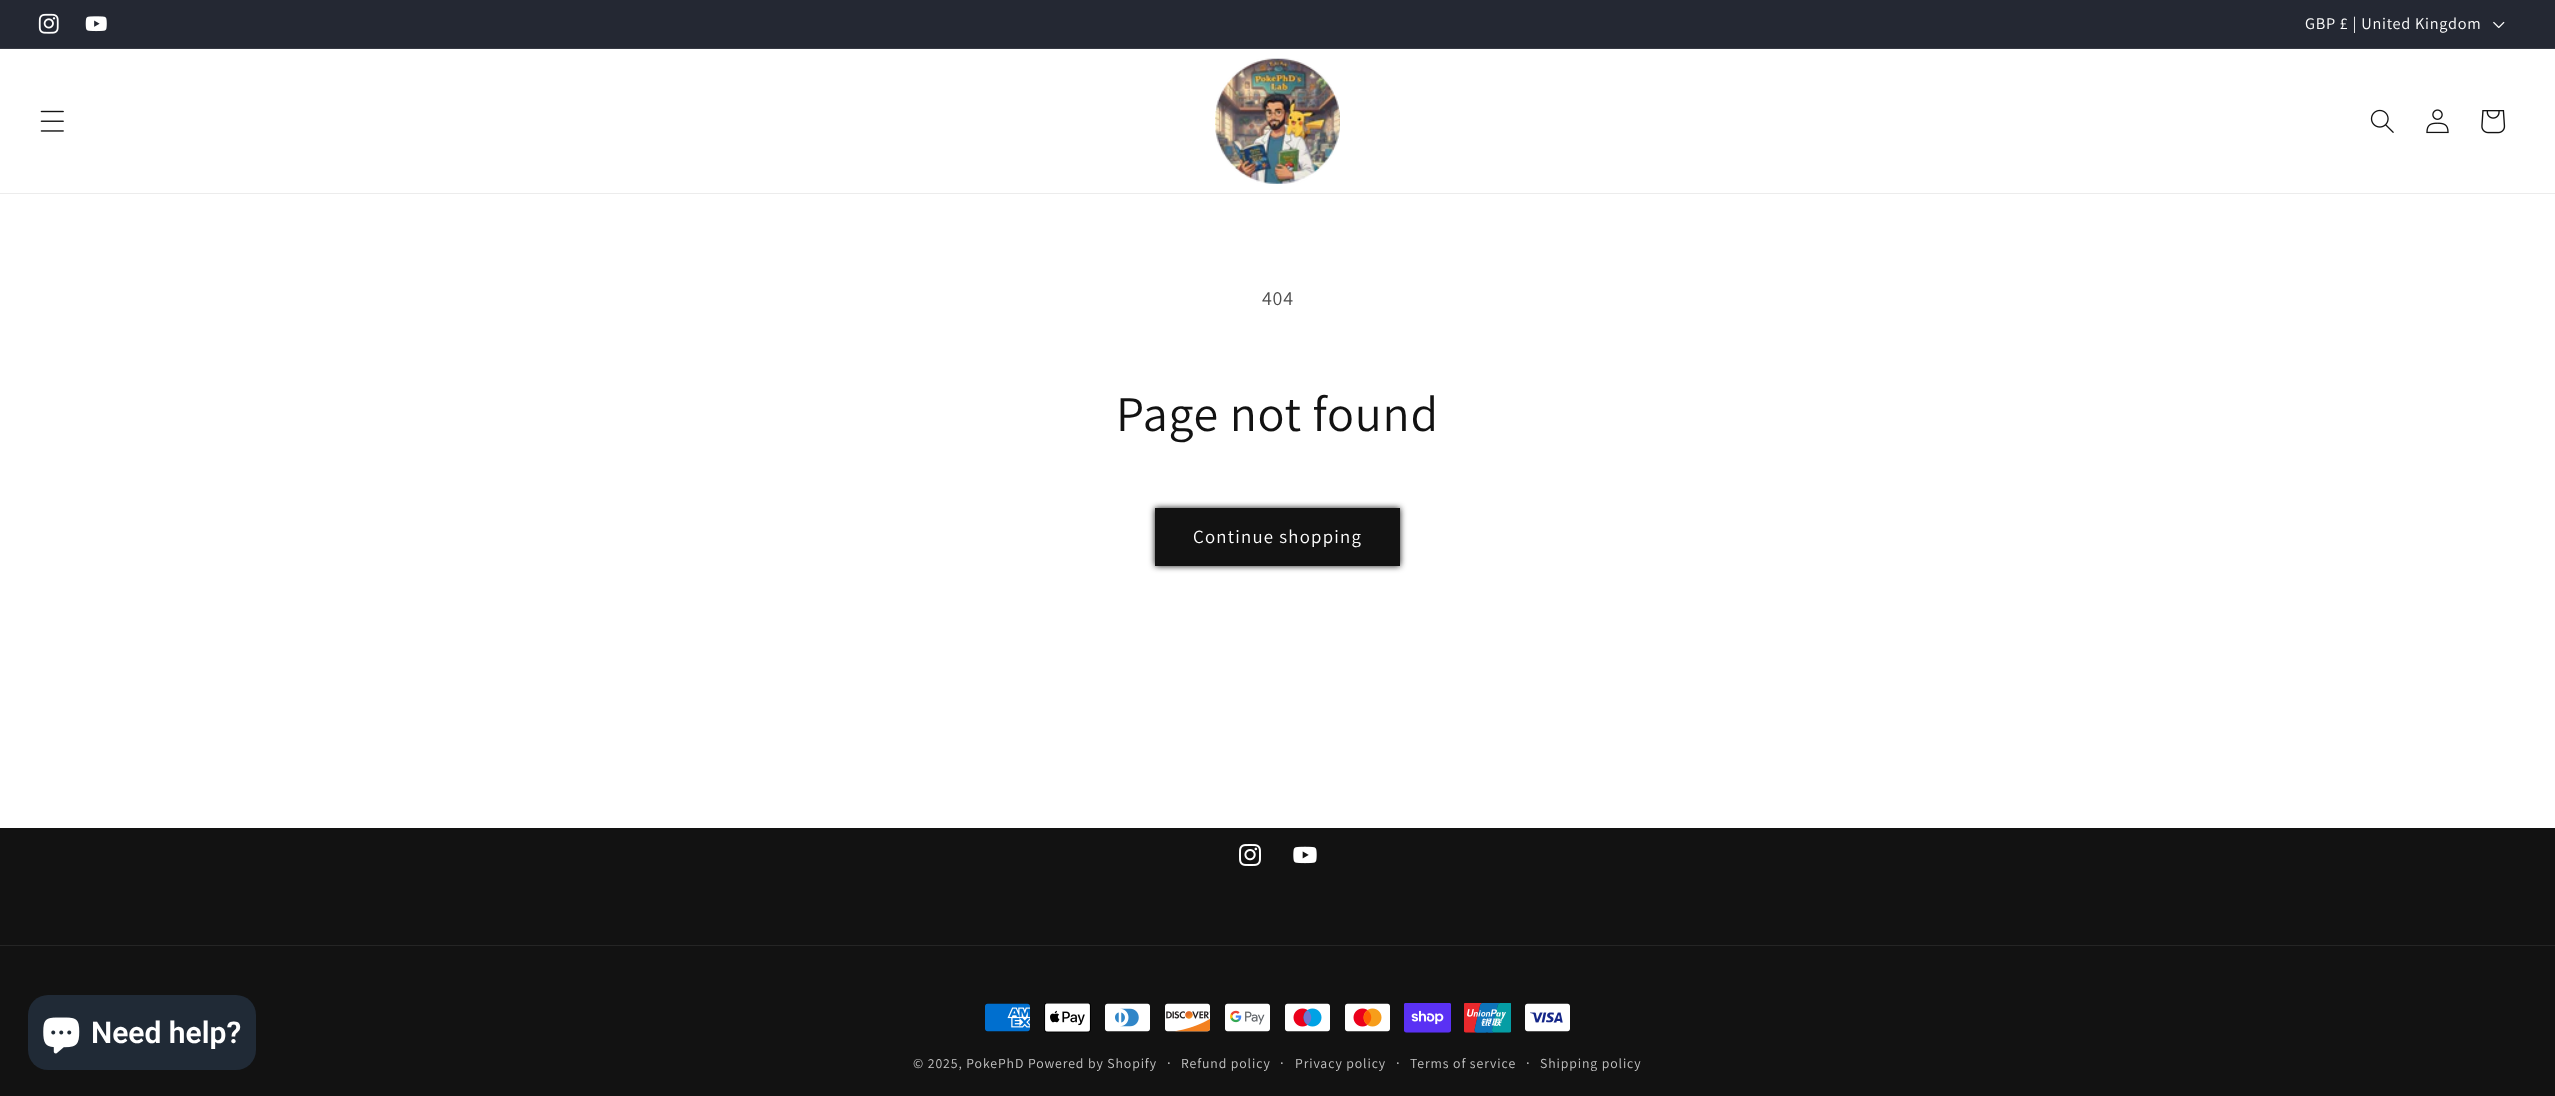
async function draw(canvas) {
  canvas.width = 2555;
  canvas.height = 1096;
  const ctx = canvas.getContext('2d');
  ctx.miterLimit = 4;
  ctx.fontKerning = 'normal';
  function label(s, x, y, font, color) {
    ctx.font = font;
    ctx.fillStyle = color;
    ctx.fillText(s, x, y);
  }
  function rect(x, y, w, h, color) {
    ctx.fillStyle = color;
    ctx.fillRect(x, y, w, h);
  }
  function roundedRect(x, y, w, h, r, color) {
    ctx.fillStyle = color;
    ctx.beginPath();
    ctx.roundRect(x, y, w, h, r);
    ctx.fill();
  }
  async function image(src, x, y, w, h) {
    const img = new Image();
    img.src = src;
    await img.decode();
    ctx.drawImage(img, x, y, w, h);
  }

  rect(0, 0, 2555, 1096, '#fff');
  rect(0, 0, 2555, 48, '#242833');
  rect(0, 48, 2555, 1, '#363943');
  await image('assets/img1.png', 38, 13, 21, 21);
  await image('assets/img2.png', 85, 16, 22, 16);
  ctx.letterSpacing = '0.75px';
  label('GBP £ | United Kingdom', 2305, 29, '16.25px Assistant', '#fff');
  await image('assets/img3.png', 2493, 21, 12, 8);
  rect(0, 193, 2555, 1, '#ececec');
  await image('assets/img4.png', 40, 110, 24, 22);
  await image('assets/img5.png', 1215, 58, 125, 126);
  await image('assets/img6.png', 2370, 109, 24, 24);
  await image('assets/img7.png', 2426, 109, 23, 25);
  await image('assets/img8.png', 2481, 110, 25, 24);
  label('404', 1262, 305, '20px Assistant', '#4d4d4d');
  label('Page not found', 1116, 431, '50px Assistant', '#121212');
  ctx.filter = 'blur(3px)';
  ctx.beginPath();
  ctx.rect(1155, 508, 245, 58);
  ctx.fill();
  ctx.filter = 'none';
  rect(1155, 508, 245, 58, '#121212');
  ctx.letterSpacing = '1.25px';
  label('Continue shopping', 1193, 543, '18.75px Assistant', '#fff');
  rect(0, 828, 2555, 268, '#121212');
  roundedRect(28, 995, 228, 75, 20, '#202a36');
  await image('assets/img9.png', 43, 1017, 37, 37);
  ctx.letterSpacing = '0px';
  label('Need help?', 91, 1043, '600 30px Roboto', '#fff');
  await image('assets/img10.png', 1239, 844, 22, 22);
  await image('assets/img11.png', 1293, 846, 24, 18);
  rect(0, 945, 2555, 1, '#252525');
  await image('assets/img12.png', 985, 1003, 45, 29);
  await image('assets/img13.png', 1044, 1003, 47, 30);
  await image('assets/img14.png', 1105, 1003, 45, 29);
  await image('assets/img15.png', 1165, 1003, 45, 29);
  await image('assets/img16.png', 1225, 1003, 45, 29);
  await image('assets/img17.png', 1285, 1003, 45, 29);
  await image('assets/img18.png', 1345, 1003, 45, 29);
  await image('assets/img19.png', 1404, 1003, 47, 30);
  await image('assets/img20.png', 1464, 1003, 47, 30);
  await image('assets/img21.png', 1525, 1003, 45, 29);
  ctx.letterSpacing = '0.9px';
  label('© 2025, PokePhD Powered by Shopify', 913, 1068, '13.75px Assistant', '#c4c4c4');
  label('·', 1167, 1068, '15px Assistant', '#c4c4c4');
  label('Refund policy', 1181, 1068, '13.75px Assistant', '#c4c4c4');
  label('·', 1280, 1068, '15px Assistant', '#c4c4c4');
  label('Privacy policy', 1295, 1068, '13.75px Assistant', '#c4c4c4');
  label('·', 1396, 1068, '15px Assistant', '#c4c4c4');
  label('Terms of service', 1410, 1068, '13.75px Assistant', '#c4c4c4');
  label('·', 1526, 1068, '15px Assistant', '#c4c4c4');
  label('Shipping policy', 1540, 1068, '13.75px Assistant', '#c4c4c4');
}

draw(document.querySelector('canvas'));
